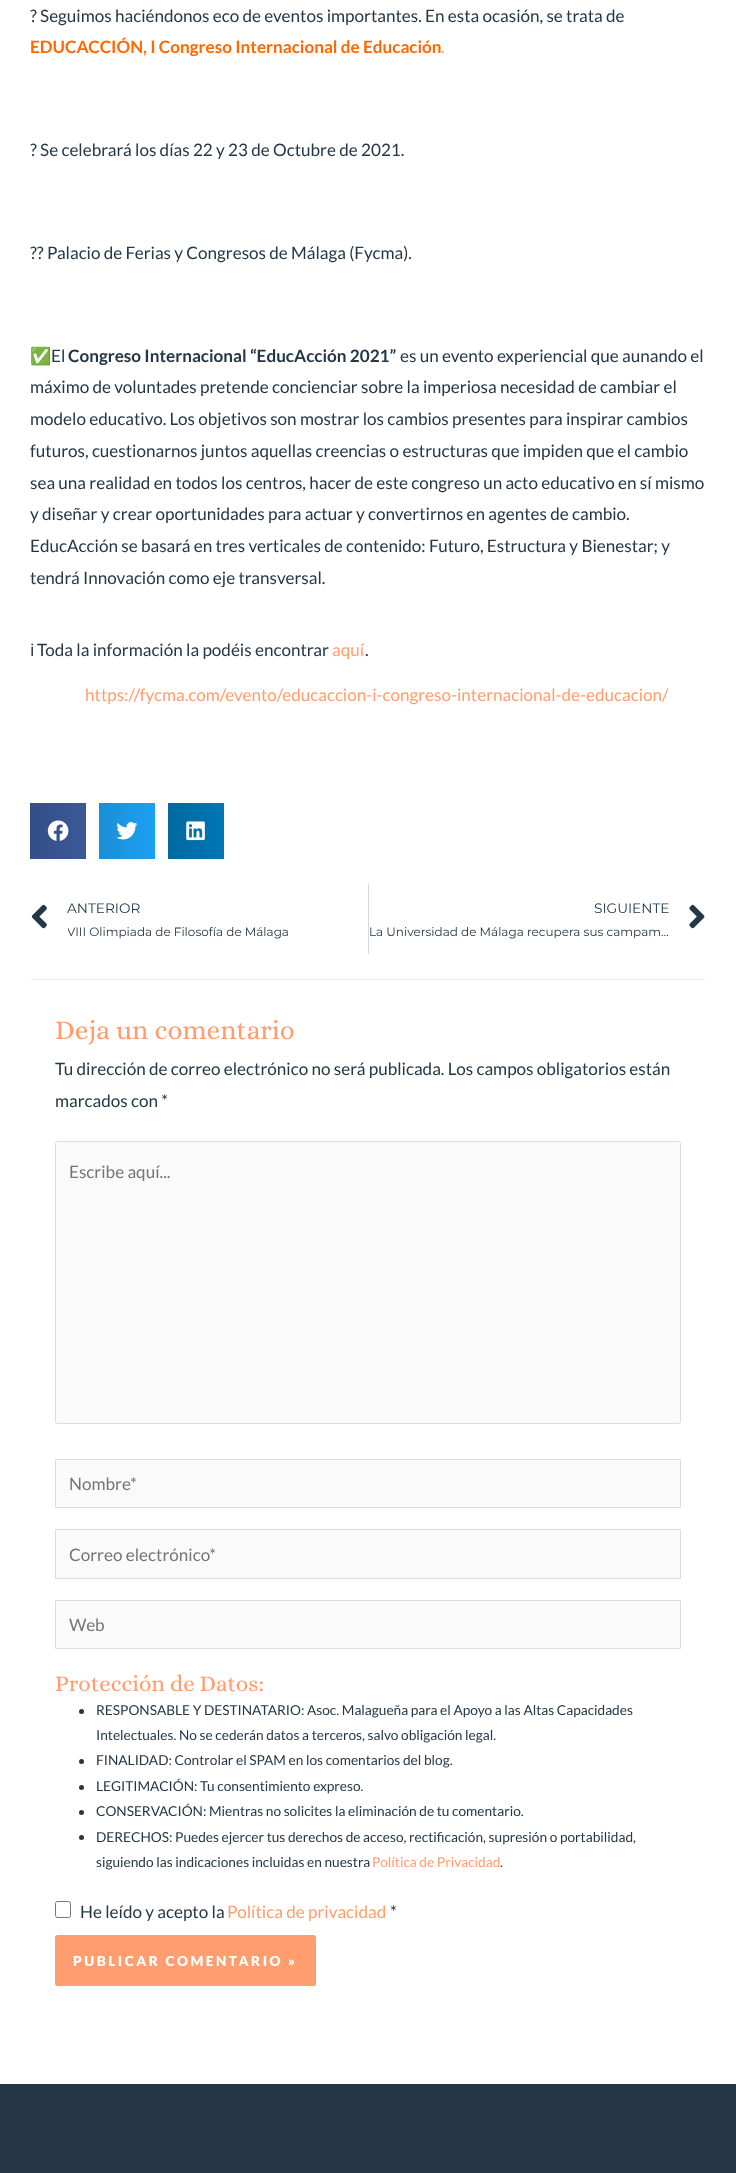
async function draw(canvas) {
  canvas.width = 736;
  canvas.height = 2173;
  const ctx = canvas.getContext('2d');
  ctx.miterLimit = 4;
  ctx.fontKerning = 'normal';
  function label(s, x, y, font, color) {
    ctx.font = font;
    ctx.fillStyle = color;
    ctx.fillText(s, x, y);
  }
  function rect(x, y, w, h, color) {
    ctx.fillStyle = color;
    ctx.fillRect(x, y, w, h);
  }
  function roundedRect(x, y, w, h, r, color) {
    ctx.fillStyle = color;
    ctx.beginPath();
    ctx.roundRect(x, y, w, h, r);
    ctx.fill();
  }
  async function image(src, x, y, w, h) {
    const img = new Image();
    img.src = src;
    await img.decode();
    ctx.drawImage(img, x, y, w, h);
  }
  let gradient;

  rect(0, 0, 736, 2173, '#fff');
  label('? Seguimos haciéndonos eco de eventos importantes. En esta ocasión, se trata de', 30, 22, '17.1px Lato', '#253746');
  label('EDUCACCIÓN, I Congreso Internacional de Educación', 30, 53, 'bold 17.1px Lato', '#ff6900');
  label('.', 441, 53, '17.1px Lato', '#ff9d6e');
  label('? Se celebrará los días 22 y 23 de Octubre de 2021.', 30, 156, '17.1px Lato', '#253746');
  label('?? Palacio de Ferias y Congresos de Málaga (Fycma).', 30, 259, '17.1px Lato', '#253746');
  label('✅', 30, 362, '17.1px Noto Color Emoji', '#253746');
  label('El', 51, 362, '17.1px Lato', '#253746');
  label('Congreso Internacional “EducAcción 2021”', 68, 362, 'bold 17.1px Lato', '#253746');
  label('es un evento experiencial que aunando el', 400, 362, '17.1px Lato', '#253746');
  label('máximo de voluntades pretende concienciar sobre la imperiosa necesidad de cambiar el', 30, 393, '17.1px Lato', '#253746');
  label('modelo educativo. Los objetivos son mostrar los cambios presentes para inspirar cambios', 30, 425, '17.1px Lato', '#253746');
  label('futuros, cuestionarnos juntos aquellas creencias o estructuras que impiden que el cambio', 30, 457, '17.1px Lato', '#253746');
  label('sea una realidad en todos los centros, hacer de este congreso un acto educativo en sí mismo', 30, 489, '17.1px Lato', '#253746');
  label('y diseñar y crear oportunidades para actuar y convertirnos en agentes de cambio.', 30, 520, '17.1px Lato', '#253746');
  label('EducAcción se basará en tres verticales de contenido: Futuro, Estructura y Bienestar; y', 30, 552, '17.1px Lato', '#253746');
  label('tendrá Innovación como eje transversal.', 30, 584, '17.1px Lato', '#253746');
  label('ℹ', 30, 656, '17.1px Noto Sans', '#253746');
  label('Toda la información la podéis encontrar', 37, 656, '17.1px Lato', '#253746');
  label('aquí', 332, 656, '17.1px Lato', '#ff9d6e');
  label('.', 365, 656, '17.1px Lato', '#253746');
  label('https://fycma.com/evento/educaccion-i-congreso-internacional-de-educacion/', 85, 701, '17.1px Lato', '#ff9d6e');
  gradient = ctx.createLinearGradient(30, 831, 86, 831);
  gradient.addColorStop(0, '#344e86');
  gradient.addColorStop(1, '#3b5998');
  ctx.fillStyle = gradient;
  ctx.fillRect(30, 803, 56, 56);
  await image('assets/img1.png', 47, 820, 22, 21);
  gradient = ctx.createLinearGradient(99, 831, 155, 831);
  gradient.addColorStop(0, '#1a8ed5');
  gradient.addColorStop(1, '#1da1f2');
  ctx.fillStyle = gradient;
  ctx.fillRect(99, 803, 56, 56);
  await image('assets/img2.png', 116, 822, 22, 18);
  gradient = ctx.createLinearGradient(168, 831, 224, 831);
  gradient.addColorStop(0, '#00699f');
  gradient.addColorStop(1, '#0077b5');
  ctx.fillStyle = gradient;
  ctx.fillRect(168, 803, 56, 56);
  await image('assets/img3.png', 186, 821, 19, 20);
  await image('assets/img4.png', 31, 904, 16, 25);
  label('ANTERIOR', 67, 913, '13.7px Montserrat', '#253746');
  ctx.save();
  ctx.beginPath();
  ctx.rect(68, 920, 221, 23);
  ctx.clip();
  label('VIII Olimpiada de Filosofía de Málaga', 67, 936, '12px Montserrat', '#253746');
  ctx.restore();
  rect(368, 884, 1, 70, '#d5d8dc');
  label('SIGUIENTE', 594, 913, '13.7px Montserrat', '#253746');
  label('La Universidad de Málaga recupera sus campam…', 369, 936, '12px Montserrat', '#253746');
  await image('assets/img5.png', 689, 904, 16, 25);
  rect(30, 979, 676, 1, '#eee');
  label('Deja un comentario', 55, 1039, '27.25px Alice', '#ff9d6e');
  label('Tu dirección de correo electrónico no será publicada. Los campos obligatorios están', 55, 1075, '17.1px Lato', '#253746');
  label('marcados con *', 55, 1107, '17.1px Lato', '#253746');
  ctx.fillStyle = '#fafafa';
  ctx.beginPath();
  ctx.roundRect(55.5, 1141.5, 625, 282, 2);
  ctx.fill();
  ctx.strokeStyle = '#ddd';
  ctx.stroke();
  label('Escribe aquí...', 69, 1178, '17.1px Lato', '#757575');
  ctx.fillStyle = '#fafafa';
  ctx.beginPath();
  ctx.rect(55.5, 1459.5, 625, 48);
  ctx.fill();
  ctx.stroke();
  label('Nombre*', 69, 1490, '17.1px Lato', '#757575');
  ctx.fillStyle = '#fafafa';
  ctx.beginPath();
  ctx.rect(55.5, 1529.5, 625, 49);
  ctx.fill();
  ctx.stroke();
  label('Correo electrónico*', 69, 1561, '17.1px Lato', '#757575');
  ctx.fillStyle = '#fafafa';
  ctx.beginPath();
  ctx.rect(55.5, 1600.5, 625, 48);
  ctx.fill();
  ctx.stroke();
  label('Web', 69, 1631, '17.1px Lato', '#757575');
  label('Protección de Datos:', 55, 1691, '22.75px Alice', '#ff9d6e');
  ctx.fillStyle = '#253746';
  ctx.beginPath();
  ctx.arc(81.5, 1711.5, 2.5, 0, 2 * Math.PI);
  ctx.fill();
  label('RESPONSABLE Y DESTINATARIO: Asoc. Malagueña para el Apoyo a las Altas Capacidades', 96, 1715, '13.7px Lato', '#253746');
  label('Intelectuales. No se cederán datos a terceros, salvo obligación legal.', 96, 1740, '13.7px Lato', '#253746');
  ctx.beginPath();
  ctx.arc(81.5, 1761.5, 2.5, 0, 2 * Math.PI);
  ctx.fill();
  label('FINALIDAD: Controlar el SPAM en los comentarios del blog.', 96, 1765, '13.7px Lato', '#253746');
  ctx.beginPath();
  ctx.arc(81.5, 1787.5, 2.5, 0, 2 * Math.PI);
  ctx.fill();
  label('LEGITIMACIÓN: Tu consentimiento expreso.', 96, 1791, '13.7px Lato', '#253746');
  ctx.beginPath();
  ctx.arc(81.5, 1812.5, 2.5, 0, 2 * Math.PI);
  ctx.fill();
  label('CONSERVACIÓN: Mientras no solicites la eliminación de tu comentario.', 96, 1816, '13.7px Lato', '#253746');
  ctx.beginPath();
  ctx.arc(81.5, 1837.5, 2.5, 0, 2 * Math.PI);
  ctx.fill();
  label('DERECHOS: Puedes ejercer tus derechos de acceso, rectificación, supresión o portabilidad,', 96, 1842, '13.7px Lato', '#253746');
  label('siguiendo las indicaciones incluidas en nuestra', 96, 1867, '13.7px Lato', '#253746');
  label('Política de Privacidad', 372, 1867, '13.7px Lato', '#ff9d6e');
  label('.', 500, 1867, '13.7px Lato', '#253746');
  ctx.beginPath();
  ctx.roundRect(55.5, 1901.5, 15, 16, 2);
  ctx.strokeStyle = '#767676';
  ctx.stroke();
  label('He leído y acepto la', 80, 1918, '17.1px Lato', '#253746');
  label('Política de privacidad', 227, 1918, '17.1px Lato', '#ff9d6e');
  label('*', 390, 1918, '17.1px Lato', '#253746');
  roundedRect(55, 1935, 261, 51, 2.5, '#ff9d6e');
  ctx.letterSpacing = '2.5px';
  label('PUBLICAR COMENTARIO »', 73, 1966, '900 13.7px Lato', '#fff');
  rect(0, 2084, 736, 89, '#253746');
}

draw(document.querySelector('canvas'));
